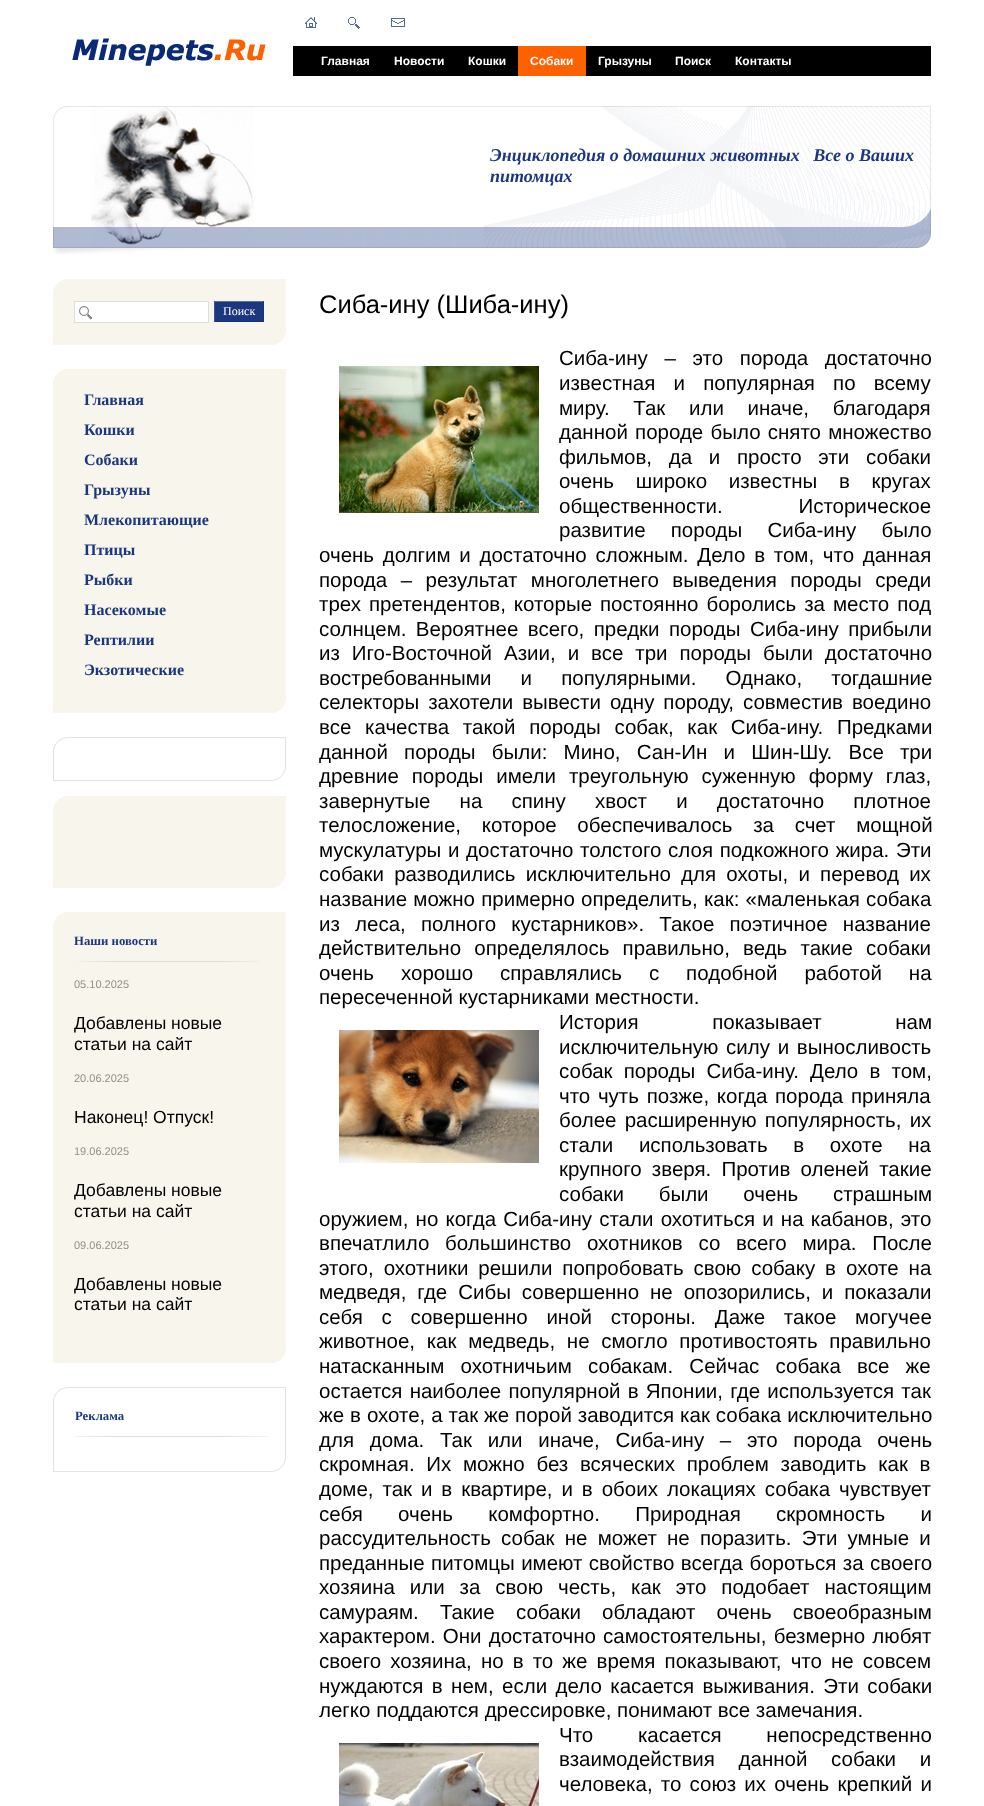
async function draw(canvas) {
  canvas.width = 984;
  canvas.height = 1806;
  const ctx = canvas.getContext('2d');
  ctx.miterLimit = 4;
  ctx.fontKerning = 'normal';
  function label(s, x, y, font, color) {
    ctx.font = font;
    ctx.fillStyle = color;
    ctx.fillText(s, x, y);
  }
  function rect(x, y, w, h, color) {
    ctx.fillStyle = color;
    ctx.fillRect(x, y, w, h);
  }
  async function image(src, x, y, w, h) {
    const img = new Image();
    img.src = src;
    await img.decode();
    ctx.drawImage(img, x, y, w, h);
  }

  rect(0, 0, 984, 1806, '#fff');
  await image('assets/img1.png', 305, 17, 12, 11);
  await image('assets/img2.png', 348, 17, 12, 12);
  await image('assets/img3.png', 391, 18, 14, 9);
  await image('assets/img4.png', 72, 38, 194, 28);
  rect(293, 46, 638, 30, '#000');
  label('Главная', 321, 65, 'bold 12px Liberation Sans', '#fff');
  label('Новости', 394, 65, 'bold 12px Liberation Sans', '#fff');
  label('Кошки', 468, 65, 'bold 12px Liberation Sans', '#fff');
  rect(518, 46, 68, 30, '#ff6000');
  label('Собаки', 530, 65, 'bold 12px Liberation Sans', '#fff');
  label('Грызуны', 598, 65, 'bold 12px Liberation Sans', '#fff');
  label('Поиск', 675, 65, 'bold 12px Liberation Sans', '#fff');
  label('Контакты', 735, 65, 'bold 12px Liberation Sans', '#fff');
  await image('assets/img6.png', 91, 106, 163, 141);
  await image('assets/img5.png', 53, 106, 437, 148);
  await image('assets/img7.png', 490, 106, 441, 142);
  label('Энциклопедия о домашних животных   Все о Ваших', 490, 161, 'italic bold 18px Liberation Serif', '#1a377f');
  label('питомцах', 490, 182, 'italic bold 18px Liberation Serif', '#1a377f');
  rect(53, 279, 233, 66, '#f7f5ec');
  await image('assets/img8.png', 53, 279, 12, 12);
  await image('assets/img9.png', 274, 333, 12, 12);
  rect(75, 302, 133, 20, '#fff');
  await image('assets/img10.png', 79, 306, 13, 14);
  ctx.strokeStyle = '#dedede';
  ctx.strokeRect(74.5, 301.5, 134, 21);
  rect(215, 302, 48, 19, '#1a377f');
  rect(214, 301, 50, 1, '#5b6fa3');
  rect(263, 301, 1, 21, '#19357a');
  rect(214, 321, 50, 1, '#183478');
  rect(214, 301, 1, 21, '#3a5391');
  label('Поиск', 223, 315, '12px Liberation Serif', '#fff');
  rect(53, 369, 233, 344, '#f7f5ec');
  await image('assets/img8.png', 53, 369, 12, 12);
  await image('assets/img9.png', 274, 701, 12, 12);
  label('Главная', 84, 405, 'bold 16px Liberation Serif', '#1a377f');
  label('Кошки', 84, 435, 'bold 16px Liberation Serif', '#1a377f');
  label('Собаки', 84, 465, 'bold 16px Liberation Serif', '#1a377f');
  label('Грызуны', 84, 495, 'bold 16px Liberation Serif', '#1a377f');
  label('Млекопитающие', 84, 525, 'bold 16px Liberation Serif', '#1a377f');
  label('Птицы', 84, 555, 'bold 16px Liberation Serif', '#1a377f');
  label('Рыбки', 84, 585, 'bold 16px Liberation Serif', '#1a377f');
  label('Насекомые', 84, 615, 'bold 16px Liberation Serif', '#1a377f');
  label('Рептилии', 84, 645, 'bold 16px Liberation Serif', '#1a377f');
  label('Экзотические', 84, 675, 'bold 16px Liberation Serif', '#1a377f');
  await image('assets/img11.png', 53, 737, 232, 13);
  rect(285, 737, 1, 31, '#e3e3e3');
  rect(53, 750, 1, 31, '#e3e3e3');
  await image('assets/img12.png', 54, 768, 232, 13);
  rect(53, 796, 233, 92, '#f7f5ec');
  await image('assets/img8.png', 53, 796, 12, 12);
  await image('assets/img9.png', 274, 876, 12, 12);
  rect(53, 912, 233, 451, '#f7f5ec');
  await image('assets/img8.png', 53, 912, 12, 12);
  await image('assets/img9.png', 274, 1351, 12, 12);
  await image('assets/img13.png', 78, 961, 182, 1);
  label('Наши новости', 74, 945, 'bold 12.75px Liberation Serif', '#1a377f');
  label('05.10.2025', 74, 988, '11px Liberation Sans', '#91908b');
  label('Добавлены новые', 74, 1029, '17.5px Liberation Sans', '#000');
  label('статьи на сайт', 74, 1050, '17.5px Liberation Sans', '#000');
  label('20.06.2025', 74, 1082, '11px Liberation Sans', '#91908b');
  label('Наконец! Отпуск!', 74, 1123, '17.5px Liberation Sans', '#000');
  label('19.06.2025', 74, 1155, '11px Liberation Sans', '#91908b');
  label('Добавлены новые', 74, 1196, '17.5px Liberation Sans', '#000');
  label('статьи на сайт', 74, 1217, '17.5px Liberation Sans', '#000');
  label('09.06.2025', 74, 1249, '11px Liberation Sans', '#91908b');
  label('Добавлены новые', 74, 1290, '17.5px Liberation Sans', '#000');
  label('статьи на сайт', 74, 1310, '17.5px Liberation Sans', '#000');
  await image('assets/img11.png', 53, 1387, 232, 13);
  rect(285, 1387, 1, 72, '#e3e3e3');
  rect(53, 1400, 1, 72, '#e3e3e3');
  await image('assets/img14.png', 75, 1436, 192, 1);
  label('Реклама', 75, 1420, 'bold 12.75px Liberation Serif', '#1a377f');
  await image('assets/img12.png', 54, 1459, 232, 13);
  label('Сиба-ину (Шиба-ину)', 319, 313, '25.5px Liberation Sans', '#000');
  ctx.wordSpacing = '11px';
  label('Сиба-ину – это порода достаточно', 559, 365, '20.5px Liberation Sans', '#000');
  await image('assets/img15.png', 339, 366, 200, 147);
  ctx.wordSpacing = '12.5px';
  label('известная и популярная по всему', 559, 390, '20.5px Liberation Sans', '#000');
  ctx.wordSpacing = '18px';
  label('миру. Так или иначе, благодаря', 559, 415, '20.5px Liberation Sans', '#000');
  ctx.wordSpacing = '1.5px';
  label('данной породе было снято множество', 559, 439, '20.5px Liberation Sans', '#000');
  ctx.wordSpacing = '11px';
  label('фильмов, да и просто эти собаки', 559, 464, '20.5px Liberation Sans', '#000');
  ctx.wordSpacing = '16px';
  label('очень широко известны в кругах', 559, 488, '20.5px Liberation Sans', '#000');
  ctx.wordSpacing = '70px';
  label('общественности. Историческое', 559, 513, '20.5px Liberation Sans', '#000');
  ctx.wordSpacing = '19.5px';
  label('развитие породы Сиба-ину было', 559, 537, '20.5px Liberation Sans', '#000');
  ctx.wordSpacing = '3px';
  label('очень долгим и достаточно сложным. Дело в том, что данная', 319, 562, '20.5px Liberation Sans', '#000');
  ctx.wordSpacing = '7.75px';
  label('порода – результат многолетнего выведения породы среди', 319, 587, '20.5px Liberation Sans', '#000');
  ctx.wordSpacing = '2.25px';
  label('трех претендентов, которые постоянно боролись за место под', 319, 611, '20.5px Liberation Sans', '#000');
  ctx.wordSpacing = '3.75px';
  label('солнцем. Вероятнее всего, предки породы Сиба-ину прибыли', 319, 636, '20.5px Liberation Sans', '#000');
  ctx.wordSpacing = '6.25px';
  label('из Иго-Восточной Азии, и все три породы были достаточно', 319, 660, '20.5px Liberation Sans', '#000');
  ctx.wordSpacing = '23.5px';
  label('востребованными и популярными. Однако, тогдашние', 319, 685, '20.5px Liberation Sans', '#000');
  ctx.wordSpacing = '3.25px';
  label('селекторы захотели вывести одну породу, совместив воедино', 319, 709, '20.5px Liberation Sans', '#000');
  ctx.wordSpacing = '8px';
  label('все качества такой породы собак, как Сиба-ину. Предками', 319, 734, '20.5px Liberation Sans', '#000');
  ctx.wordSpacing = '10.5px';
  label('данной породы были: Мино, Сан-Ин и Шин-Шу. Все три', 319, 759, '20.5px Liberation Sans', '#000');
  ctx.wordSpacing = '7.25px';
  label('древние породы имели треугольную суженную форму глаз,', 319, 783, '20.5px Liberation Sans', '#000');
  ctx.wordSpacing = '23.5px';
  label('завернутые на спину хвост и достаточно плотное', 319, 808, '20.5px Liberation Sans', '#000');
  ctx.wordSpacing = '15px';
  label('телосложение, которое обеспечивалось за счет мощной', 319, 832, '20.5px Liberation Sans', '#000');
  ctx.wordSpacing = '1px';
  label('мускулатуры и достаточно толстого слоя подкожного жира. Эти', 319, 857, '20.5px Liberation Sans', '#000');
  ctx.wordSpacing = '4.5px';
  label('собаки разводились исключительно для охоты, и перевод их', 319, 881, '20.5px Liberation Sans', '#000');
  ctx.wordSpacing = '0.5px';
  label('название можно примерно определить, как: «маленькая собака', 319, 906, '20.5px Liberation Sans', '#000');
  ctx.wordSpacing = '9.5px';
  label('из леса, полного кустарников». Такое поэтичное название', 319, 931, '20.5px Liberation Sans', '#000');
  ctx.wordSpacing = '7.5px';
  label('действительно определялось правильно, ведь такие собаки', 319, 955, '20.5px Liberation Sans', '#000');
  ctx.wordSpacing = '21.25px';
  label('очень хорошо справлялись с подобной работой на', 319, 980, '20.5px Liberation Sans', '#000');
  ctx.wordSpacing = '0px';
  label('пересеченной кустарниками местности.', 319, 1004, '20.5px Liberation Sans', '#000');
  ctx.wordSpacing = '68px';
  label('История показывает нам', 559, 1029, '20.5px Liberation Sans', '#000');
  await image('assets/img16.png', 339, 1030, 200, 133);
  ctx.wordSpacing = '2px';
  label('исключительную силу и выносливость', 559, 1054, '20.5px Liberation Sans', '#000');
  ctx.wordSpacing = '5.5px';
  label('собак породы Сиба-ину. Дело в том,', 559, 1078, '20.5px Liberation Sans', '#000');
  ctx.wordSpacing = '2px';
  label('что чуть позже, когда порода приняла', 559, 1103, '20.5px Liberation Sans', '#000');
  ctx.wordSpacing = '2.5px';
  label('более расширенную популярность, их', 559, 1127, '20.5px Liberation Sans', '#000');
  ctx.wordSpacing = '20px';
  label('стали использовать в охоте на', 559, 1152, '20.5px Liberation Sans', '#000');
  ctx.wordSpacing = '4.5px';
  label('крупного зверя. Против оленей такие', 559, 1176, '20.5px Liberation Sans', '#000');
  ctx.wordSpacing = '29px';
  label('собаки были очень страшным', 559, 1201, '20.5px Liberation Sans', '#000');
  ctx.wordSpacing = '1.5px';
  label('оружием, но когда Сиба-ину стали охотиться и на кабанов, это', 319, 1226, '20.5px Liberation Sans', '#000');
  ctx.wordSpacing = '10px';
  label('впечатлило большинство охотников со всего мира. После', 319, 1250, '20.5px Liberation Sans', '#000');
  ctx.wordSpacing = '4.25px';
  label('этого, охотники решили попробовать свою собаку в охоте на', 319, 1275, '20.5px Liberation Sans', '#000');
  ctx.wordSpacing = '5.25px';
  label('медведя, где Сибы совершенно не опозорились, и показали', 319, 1299, '20.5px Liberation Sans', '#000');
  ctx.wordSpacing = '13px';
  label('себя с совершенно иной стороны. Даже такое могучее', 319, 1324, '20.5px Liberation Sans', '#000');
  ctx.wordSpacing = '6px';
  label('животное, как медведь, не смогло противостоять правильно', 319, 1348, '20.5px Liberation Sans', '#000');
  ctx.wordSpacing = '10.5px';
  label('натасканным охотничьим собакам. Сейчас собака все же', 319, 1373, '20.5px Liberation Sans', '#000');
  ctx.wordSpacing = '1.5px';
  label('остается наиболее популярной в Японии, где используется так', 319, 1398, '20.5px Liberation Sans', '#000');
  ctx.wordSpacing = '0.25px';
  label('же в охоте, а так же порой заводится как собака исключительно', 319, 1422, '20.5px Liberation Sans', '#000');
  ctx.wordSpacing = '10px';
  label('для дома. Так или иначе, Сиба-ину – это порода очень', 319, 1447, '20.5px Liberation Sans', '#000');
  ctx.wordSpacing = '6px';
  label('скромная. Их можно без всяческих проблем заводить как в', 319, 1471, '20.5px Liberation Sans', '#000');
  ctx.wordSpacing = '3.25px';
  label('доме, так и в квартире, и в обоих локациях собака чувствует', 319, 1496, '20.5px Liberation Sans', '#000');
  ctx.wordSpacing = '29.5px';
  label('себя очень комфортно. Природная скромность и', 319, 1521, '20.5px Liberation Sans', '#000');
  ctx.wordSpacing = '4.5px';
  label('рассудительность собак не может не поразить. Эти умные и', 319, 1545, '20.5px Liberation Sans', '#000');
  ctx.wordSpacing = '0.75px';
  label('преданные питомцы имеют свойство всегда бороться за своего', 319, 1570, '20.5px Liberation Sans', '#000');
  ctx.wordSpacing = '9.25px';
  label('хозяина или за свою честь, как это подобает настоящим', 319, 1594, '20.5px Liberation Sans', '#000');
  ctx.wordSpacing = '15.5px';
  label('самураям. Такие собаки обладают очень своеобразным', 319, 1619, '20.5px Liberation Sans', '#000');
  ctx.wordSpacing = '1.5px';
  label('характером. Они достаточно самостоятельны, безмерно любят', 319, 1643, '20.5px Liberation Sans', '#000');
  ctx.wordSpacing = '3.4px';
  label('своего хозяина, но в то же время показывают, что не совсем', 319, 1668, '20.5px Liberation Sans', '#000');
  ctx.wordSpacing = '2.75px';
  label('нуждаются в нем, если дело касается выживания. Эти собаки', 319, 1693, '20.5px Liberation Sans', '#000');
  ctx.wordSpacing = '0px';
  label('легко поддаются дрессировке, понимают все замечания.', 319, 1717, '20.5px Liberation Sans', '#000');
  ctx.wordSpacing = '39px';
  label('Что касается непосредственно', 559, 1742, '20.5px Liberation Sans', '#000');
  await image('assets/img17.png', 339, 1743, 200, 63);
  ctx.wordSpacing = '18px';
  label('взаимодействия данной собаки и', 559, 1766, '20.5px Liberation Sans', '#000');
  ctx.wordSpacing = '2.5px';
  label('человека, то союз их очень крепкий и', 559, 1791, '20.5px Liberation Sans', '#000');
}

draw(document.querySelector('canvas'));
